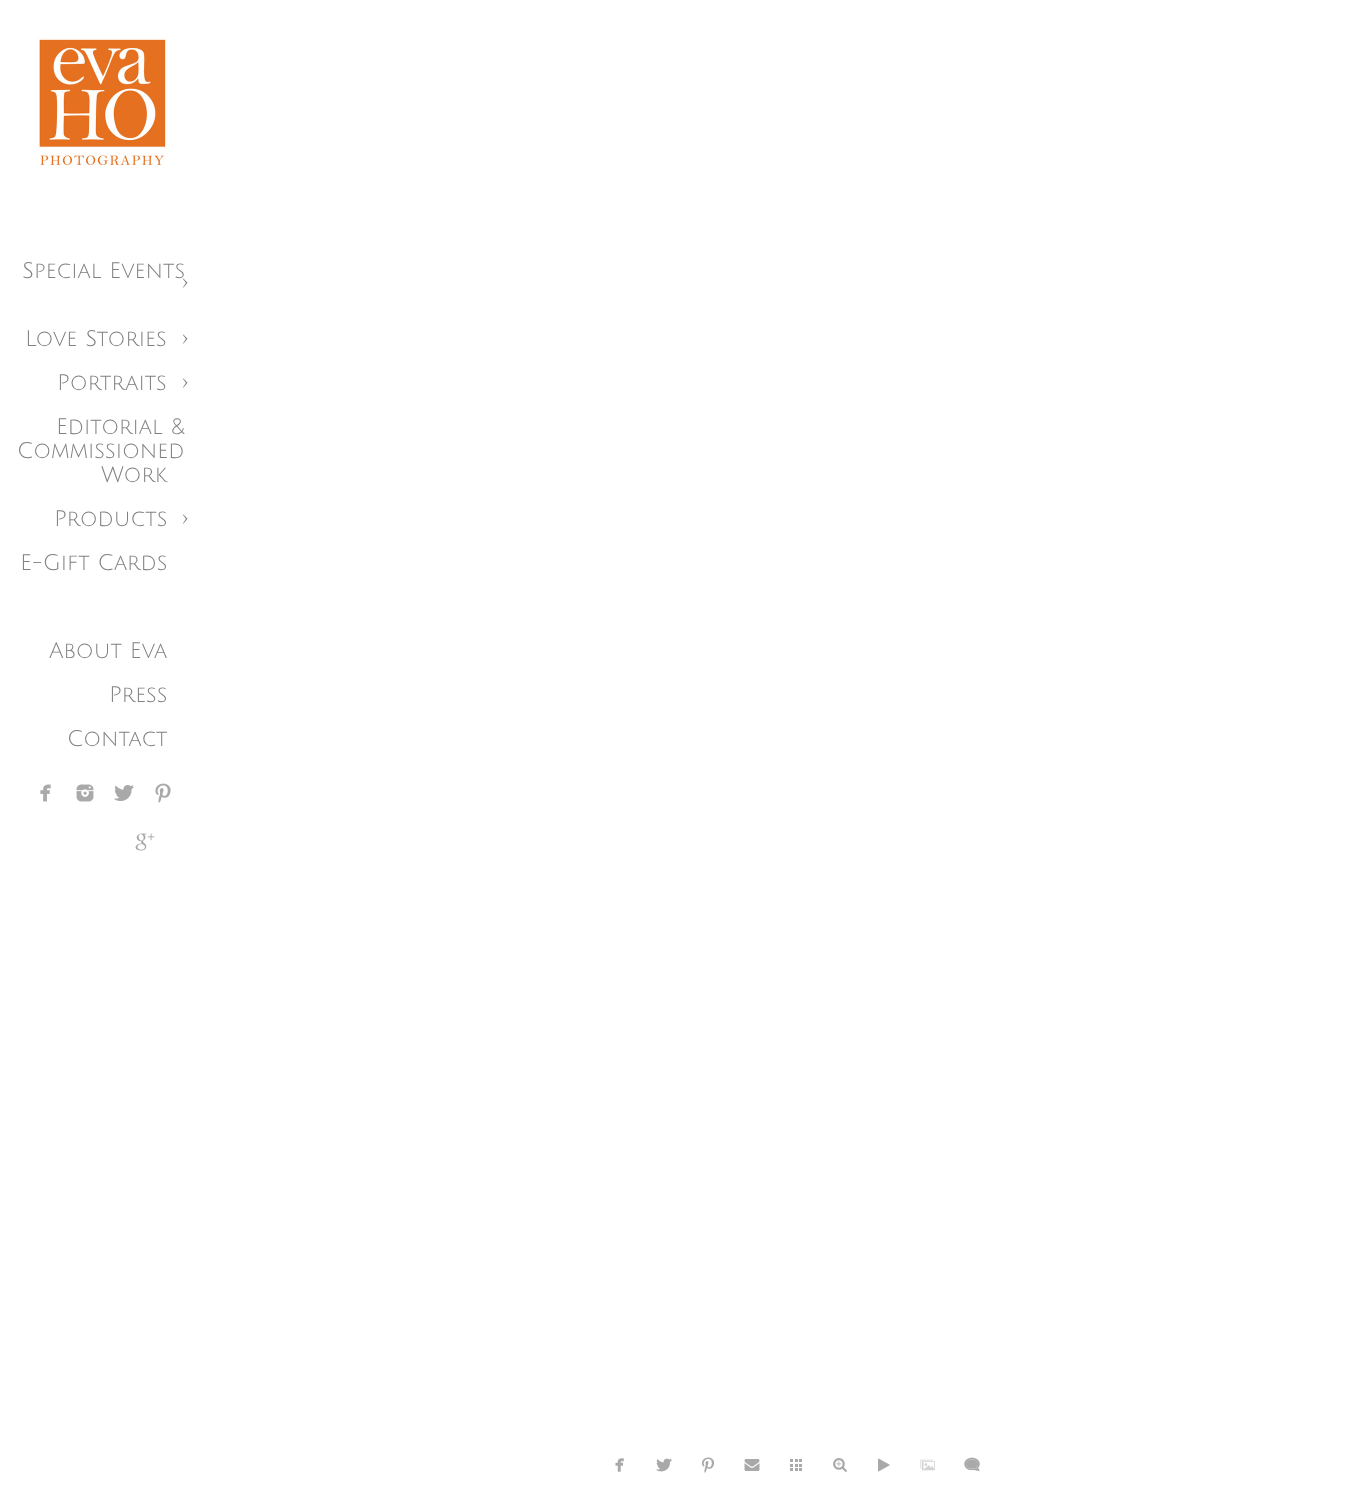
async function draw(canvas) {
  canvas.width = 1371;
  canvas.height = 1492;
  const ctx = canvas.getContext('2d');
  ctx.miterLimit = 4;
  ctx.fontKerning = 'normal';
  function label(s, x, y, font, color) {
    ctx.font = font;
    ctx.fillStyle = color;
    ctx.fillText(s, x, y);
  }
  function rect(x, y, w, h, color) {
    ctx.fillStyle = color;
    ctx.fillRect(x, y, w, h);
  }
  async function image(src, x, y, w, h) {
    const img = new Image();
    img.src = src;
    await img.decode();
    ctx.drawImage(img, x, y, w, h);
  }

  rect(0, 0, 1371, 1492, '#fff');
  await image('assets/img1.png', 37, 37, 131, 129);
  label('Special Events', 22, 278, '22px Julius Sans One', '#808080');
  await image('assets/img2.png', 182, 278, 6, 10);
  label('Love Stories', 25, 346, '22px Julius Sans One', '#808080');
  await image('assets/img2.png', 182, 334, 6, 10);
  label('Portraits', 57, 390, '22px Julius Sans One', '#808080');
  await image('assets/img2.png', 182, 378, 6, 10);
  label('Editorial &', 56, 434, '22px Julius Sans One', '#808080');
  label('Commissioned', 17, 458, '22px Julius Sans One', '#808080');
  label('Work', 101, 482, '22px Julius Sans One', '#808080');
  label('Products', 54, 526, '22px Julius Sans One', '#808080');
  await image('assets/img2.png', 182, 514, 6, 10);
  label('E-Gift Cards', 20, 570, '22px Julius Sans One', '#808080');
  label('About Eva', 49, 658, '22px Julius Sans One', '#808080');
  label('Press', 109, 702, '22px Julius Sans One', '#808080');
  label('Contact', 67, 746, '22px Julius Sans One', '#808080');
  await image('assets/img3.png', 40, 784, 11, 18);
  await image('assets/img4.png', 76, 784, 18, 18);
  await image('assets/img5.png', 114, 785, 20, 16);
  await image('assets/img6.png', 155, 783, 16, 20);
  await image('assets/img7.png', 135, 833, 20, 18);
  await image('assets/img8.png', 615, 1458, 9, 14);
  await image('assets/img9.png', 656, 1458, 16, 14);
  await image('assets/img10.png', 702, 1457, 12, 16);
  await image('assets/img11.png', 744, 1459, 16, 12);
  await image('assets/img12.png', 790, 1459, 12, 12);
  await image('assets/img13.png', 833, 1458, 14, 14);
  await image('assets/img14.png', 878, 1458, 12, 14);
  await image('assets/img15.png', 920, 1459, 15, 12);
  await image('assets/img16.png', 964, 1457, 16, 15);
}

draw(document.querySelector('canvas'));
